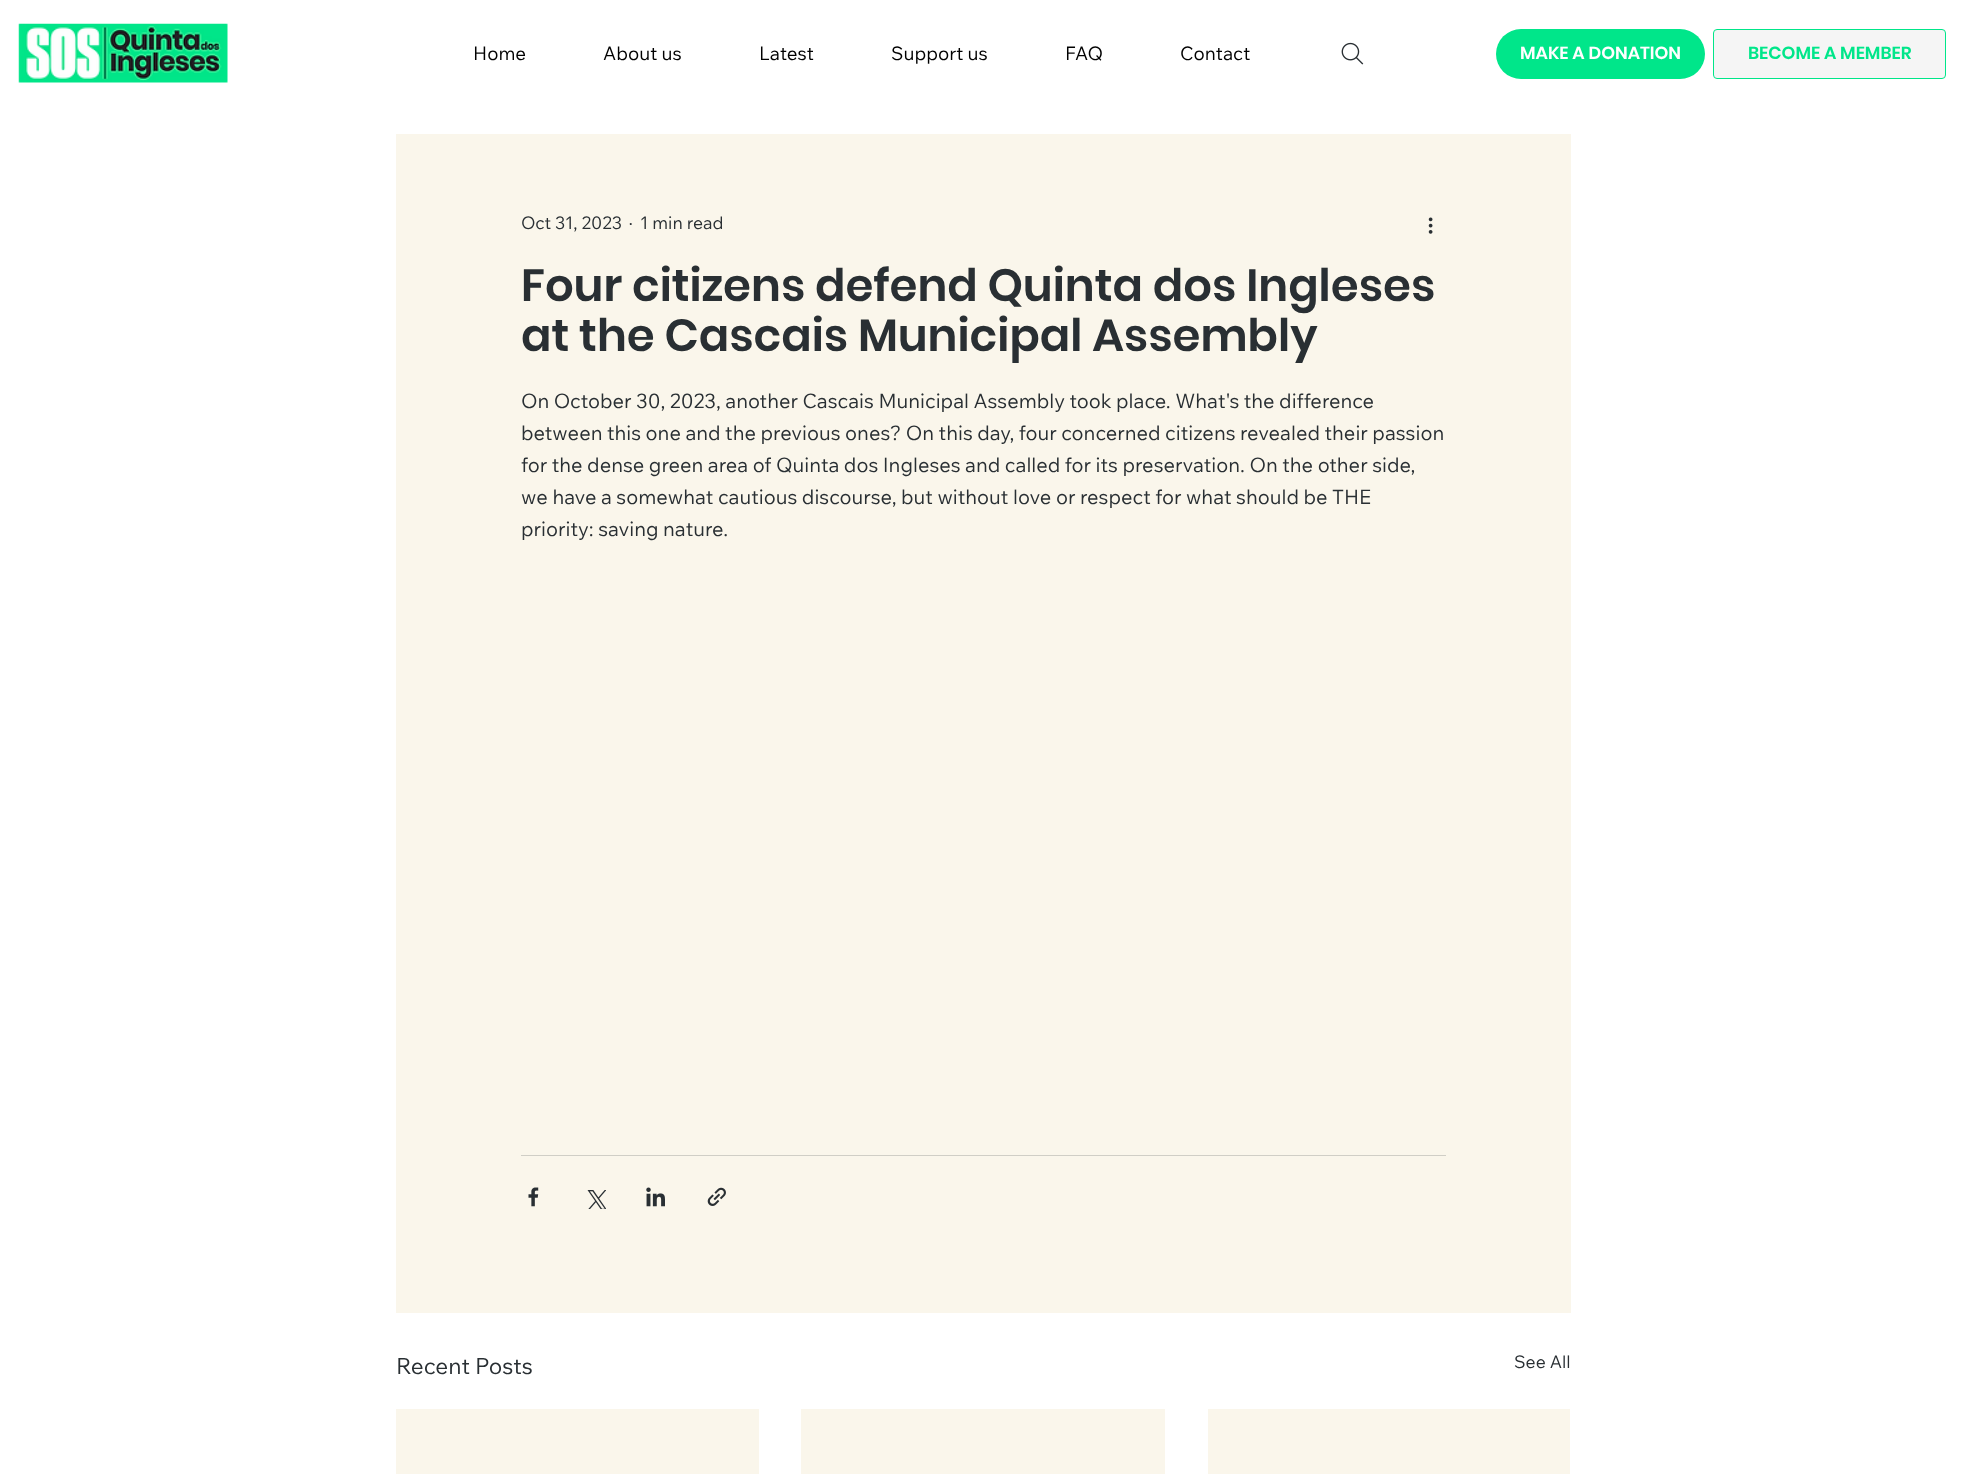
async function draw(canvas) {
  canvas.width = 1966;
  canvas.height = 1474;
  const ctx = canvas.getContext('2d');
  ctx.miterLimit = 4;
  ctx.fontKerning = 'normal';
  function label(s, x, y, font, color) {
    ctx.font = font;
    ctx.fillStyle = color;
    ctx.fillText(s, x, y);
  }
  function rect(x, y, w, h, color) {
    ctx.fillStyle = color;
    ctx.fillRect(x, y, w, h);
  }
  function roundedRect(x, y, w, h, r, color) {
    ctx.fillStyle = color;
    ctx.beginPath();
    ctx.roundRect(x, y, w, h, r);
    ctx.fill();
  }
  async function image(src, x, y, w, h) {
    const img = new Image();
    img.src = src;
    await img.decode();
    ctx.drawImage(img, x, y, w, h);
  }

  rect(0, 0, 1966, 1474, '#fff');
  await image('assets/img1.png', 1341, 42, 23, 23);
  await image('assets/img2.png', 18, 23, 210, 60);
  label('Home', 473, 60, '18.75px Wix Madefor Text', '#000');
  label('About us', 603, 60, '18.75px Wix Madefor Text', '#000');
  label('Latest', 759, 60, '18.75px Wix Madefor Text', '#000');
  label('Support us', 891, 60, '18.75px Wix Madefor Text', '#000');
  label('FAQ', 1065, 60, '18.75px Wix Madefor Text', '#000');
  label('Contact', 1180, 60, '18.75px Wix Madefor Text', '#000');
  roundedRect(1496, 29, 209, 50, 25, '#00e68a');
  label('MAKE A DONATION', 1520, 59, '600 17.5px Poppins', '#fff');
  ctx.fillStyle = '#f5f5f5';
  ctx.beginPath();
  ctx.roundRect(1713.5, 29.5, 232, 49, 3.5);
  ctx.fill();
  ctx.strokeStyle = '#00e689';
  ctx.stroke();
  label('BECOME A MEMBER', 1748, 59, '600 17.5px Poppins', '#00e68a');
  rect(396, 134, 1175, 1179, '#faf6eb');
  label('Oct 31, 2023', 521, 229, '17.5px Wix Madefor Text', '#292f33');
  label('·', 629, 229, '17.5px Wix Madefor Text', '#292f33');
  label('1 min read', 640, 229, '17.5px Wix Madefor Text', '#292f33');
  await image('assets/img3.png', 1428, 217, 5, 17);
  label('Four citizens defend Quinta dos Ingleses', 521, 301, '600 45px Poppins', '#292f33');
  label('at the Cascais Municipal Assembly', 521, 351, '600 45px Poppins', '#292f33');
  label('On October 30, 2023, another Cascais Municipal Assembly took place. What\'s the difference', 521, 408, '20px Wix Madefor Text', '#292f33');
  label('between this one and the previous ones? On this day, four concerned citizens revealed their passion', 521, 440, '20px Wix Madefor Text', '#292f33');
  label('for the dense green area of Quinta dos Ingleses and called for its preservation. On the other side,', 521, 472, '20px Wix Madefor Text', '#292f33');
  label('we have a somewhat cautious discourse, but without love or respect for what should be THE', 521, 504, '20px Wix Madefor Text', '#292f33');
  label('priority: saving nature.', 521, 536, '20px Wix Madefor Text', '#292f33');
  rect(521, 1155, 925, 1, '#d0cec6');
  await image('assets/img4.png', 528, 1187, 11, 20);
  await image('assets/img5.png', 587, 1190, 19, 19);
  await image('assets/img6.png', 646, 1187, 19, 20);
  await image('assets/img7.png', 707, 1187, 19, 19);
  label('Recent Posts', 396, 1374, '22.5px Wix Madefor Text', '#292f33');
  label('See All', 1514, 1368, '17.5px Wix Madefor Text', '#292f33');
  rect(396, 1409, 363, 65, '#faf6eb');
  rect(801, 1409, 364, 65, '#faf6eb');
  rect(1208, 1409, 362, 65, '#faf6eb');
}

draw(document.querySelector('canvas'));
